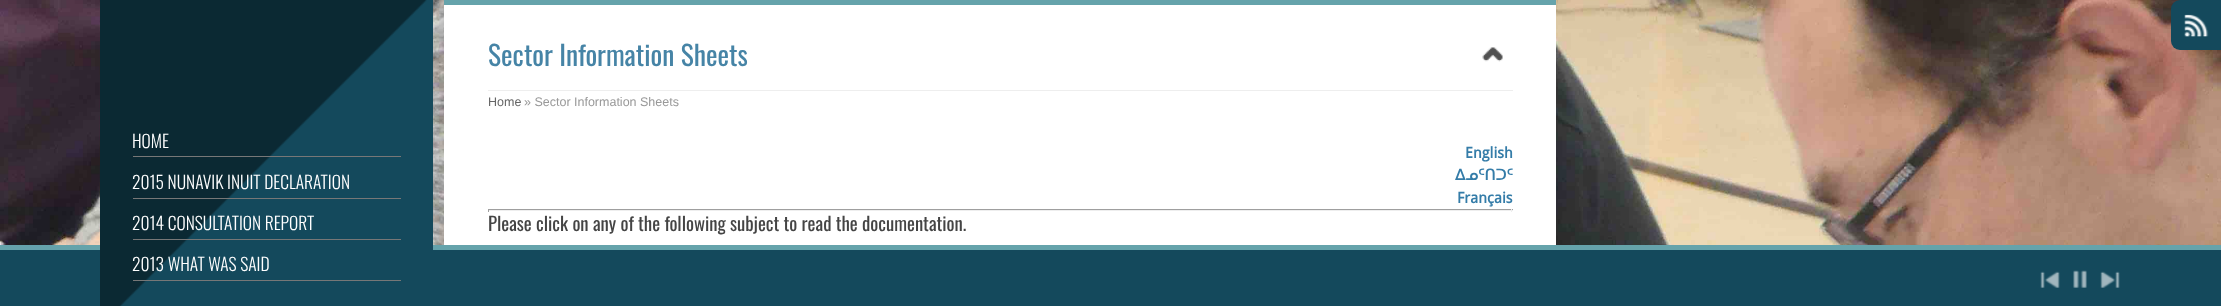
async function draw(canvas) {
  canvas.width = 2221;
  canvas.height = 306;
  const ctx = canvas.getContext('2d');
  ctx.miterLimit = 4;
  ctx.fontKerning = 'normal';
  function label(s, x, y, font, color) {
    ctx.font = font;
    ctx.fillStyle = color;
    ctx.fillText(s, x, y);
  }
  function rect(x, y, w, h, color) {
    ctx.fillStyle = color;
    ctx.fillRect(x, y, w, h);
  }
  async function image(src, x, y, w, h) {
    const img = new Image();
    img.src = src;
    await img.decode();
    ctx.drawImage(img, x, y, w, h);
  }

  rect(0, 0, 2221, 306, '#fff');
  await image('assets/img1.png', 0, 0, 2221, 245);
  ctx.fillStyle = '#14495c';
  ctx.beginPath();
  ctx.roundRect(2171, 0, 50, 50, [9, 0, 0, 9]);
  ctx.fill();
  await image('assets/img2.png', 2184, 14, 25, 23);
  rect(0, 245, 2221, 5, '#65a3ab');
  rect(100, 0, 333, 250, '#14495c');
  rect(0, 250, 2221, 56, '#14495c');
  await image('assets/img3.png', 100, 0, 327, 306);
  rect(133, 156, 268, 1, '#777');
  label('HOME', 132, 148, '300 17.5px Oswald', '#fff');
  rect(133, 198, 268, 1, '#777');
  label('2015 NUNAVIK INUIT DECLARATION', 132, 189, '300 17.5px Oswald', '#fff');
  rect(133, 239, 268, 1, '#777');
  label('2014 CONSULTATION REPORT', 132, 230, '300 17.5px Oswald', '#fff');
  rect(133, 280, 268, 1, '#777');
  label('2013 WHAT WAS SAID', 132, 271, '300 17.5px Oswald', '#fff');
  rect(444, 5, 1112, 240, '#fff');
  rect(444, 0, 1112, 5, '#65a3ab');
  rect(488, 90, 1025, 1, '#eee');
  label('Sector Information Sheets', 488, 66, '27.5px Oswald', '#4684a6');
  await image('assets/img4.png', 1482, 47, 21, 15);
  label('Home', 488, 106, '12.5px Liberation Sans', '#666');
  label('» Sector Information Sheets', 524, 106, '12.5px Liberation Sans', '#999');
  label('English', 1465, 158, 'bold 15px Droid Sans', '#347ca8');
  label('ᐃᓄᑦᑎᑐᑦ', 1455, 180, 'bold 15px DejaVu Sans', '#347ca8');
  label('Français', 1457, 203, 'bold 15px Droid Sans', '#347ca8');
  rect(488, 209, 1025, 1, '#9f9f9f');
  rect(1511, 209, 1, 3, '#eee');
  rect(488, 210, 1025, 1, '#eee');
  rect(488, 209, 1, 3, '#9f9f9f');
  label('Please click on any of the following subject to read the documentation.', 488, 231, '18.75px Oswald', '#444');
  await image('assets/img5.png', 2040, 271, 20, 17);
  await image('assets/img6.png', 2073, 270, 14, 18);
  await image('assets/img7.png', 2100, 271, 20, 17);
}

draw(document.querySelector('canvas'));
